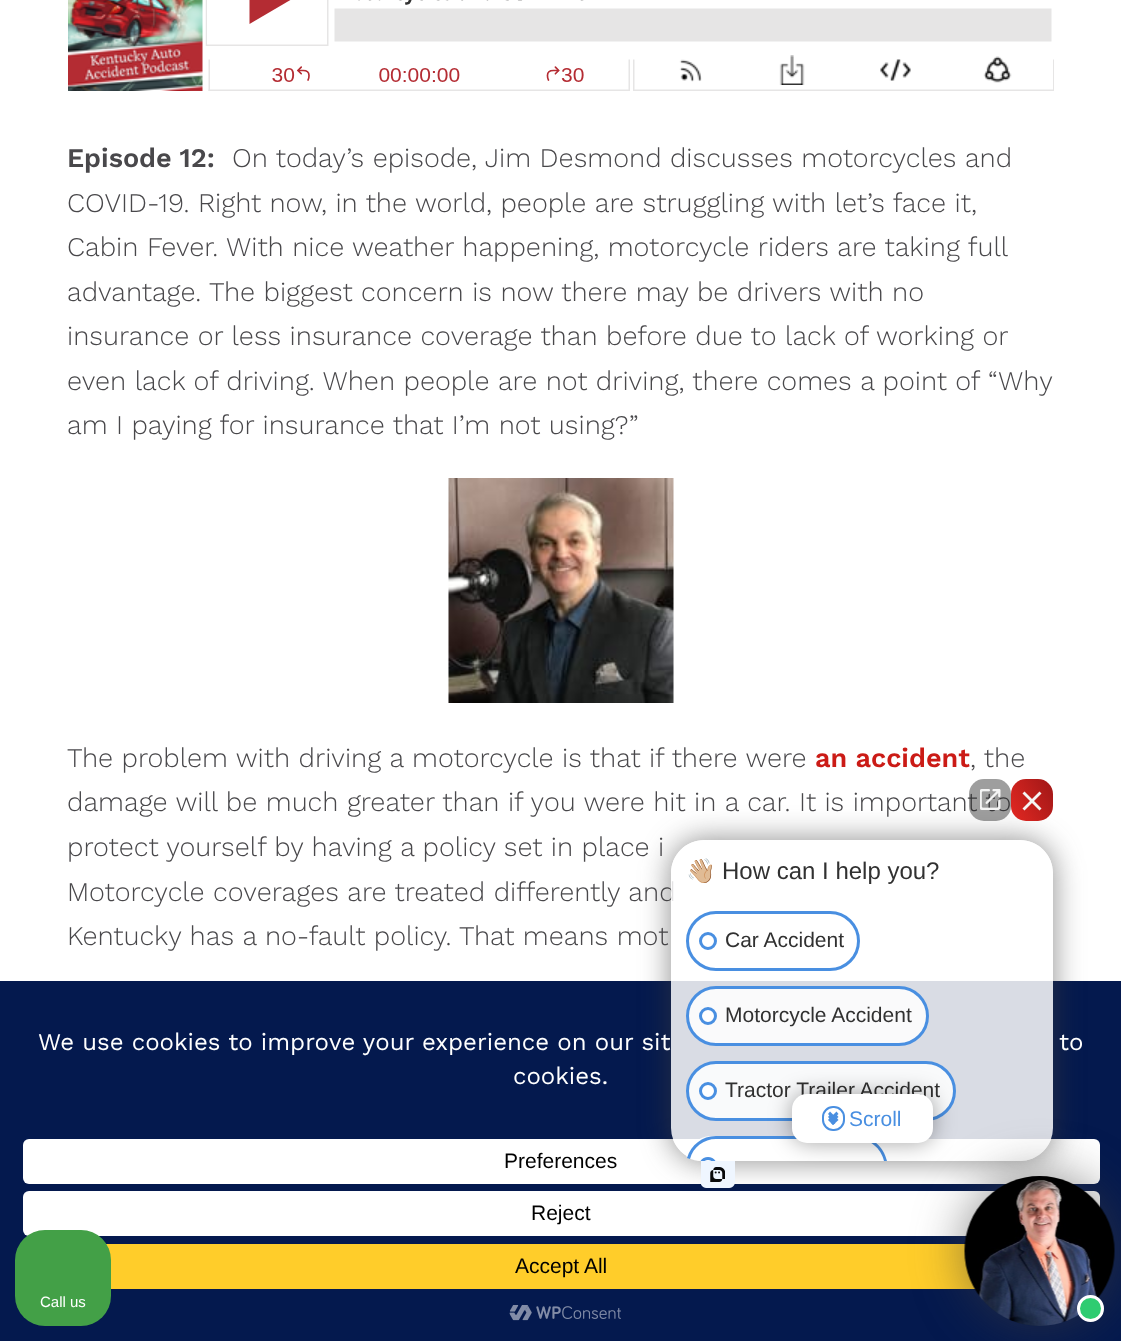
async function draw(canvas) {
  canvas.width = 1121;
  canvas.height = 1341;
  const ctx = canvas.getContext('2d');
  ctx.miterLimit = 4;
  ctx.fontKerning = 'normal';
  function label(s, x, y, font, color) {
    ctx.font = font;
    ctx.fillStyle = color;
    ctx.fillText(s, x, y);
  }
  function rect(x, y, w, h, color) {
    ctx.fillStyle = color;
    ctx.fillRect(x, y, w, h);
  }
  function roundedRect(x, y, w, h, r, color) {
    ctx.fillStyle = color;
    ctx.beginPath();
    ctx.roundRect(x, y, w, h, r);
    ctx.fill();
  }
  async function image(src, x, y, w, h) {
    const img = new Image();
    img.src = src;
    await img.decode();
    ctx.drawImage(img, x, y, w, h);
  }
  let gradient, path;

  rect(0, 0, 1121, 1341, '#fff');
  await image('assets/img1.png', 68, 0, 986, 91);
  label('Episode 12:', 67, 167, '600 27px Work Sans', '#49484b');
  label('On today’s episode, Jim Desmond discusses motorcycles and', 232, 167, '300 27px Work Sans', '#49484b');
  label('COVID-19. Right now, in the world, people are struggling with let’s face it,', 67, 212, '300 27px Work Sans', '#49484b');
  label('Cabin Fever. With nice weather happening, motorcycle riders are taking full', 67, 256, '300 27px Work Sans', '#49484b');
  label('advantage. The biggest concern is now there may be drivers with no', 67, 301, '300 27px Work Sans', '#49484b');
  label('insurance or less insurance coverage than before due to lack of working or', 67, 345, '300 27px Work Sans', '#49484b');
  label('even lack of driving. When people are not driving, there comes a point of “Why', 67, 390, '300 27px Work Sans', '#49484b');
  label('am I paying for insurance that I’m not using?”', 67, 434, '300 27px Work Sans', '#49484b');
  await image('assets/img2.png', 448, 478, 226, 225);
  label('The problem with driving a motorcycle is that if there were', 67, 767, '300 27px Work Sans', '#49484b');
  label('an accident', 815, 767, '600 27px Work Sans', '#cb1b16');
  label(', the', 970, 767, '300 27px Work Sans', '#49484b');
  label('damage will be much greater than if you were hit in a car. It is important to', 67, 811, '300 27px Work Sans', '#49484b');
  label('protect yourself by having a policy set in place i', 67, 856, '300 27px Work Sans', '#49484b');
  label('Motorcycle coverages are treated differently and', 67, 901, '300 27px Work Sans', '#49484b');
  label('Kentucky has a no-fault policy. That means mot', 67, 945, '300 27px Work Sans', '#49484b');
  rect(0, 981, 1121, 360, '#04194e');
  roundedRect(23, 1139, 1077, 45, 6, '#fff');
  roundedRect(23, 1191, 1077, 45, 6, '#fff');
  ctx.save();
  path = new Path2D('M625 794H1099V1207H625ZM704 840H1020C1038 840 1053 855 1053 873V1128C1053 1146 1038 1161 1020 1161H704C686 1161 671 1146 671 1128V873C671 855 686 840 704 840Z');
  ctx.clip(path, 'evenodd');
  ctx.fillStyle = '#3c3c3c99';
  ctx.filter = 'blur(15px)';
  ctx.beginPath();
  ctx.roundRect(671, 840, 382, 321, 33);
  ctx.fill();
  ctx.filter = 'none';
  ctx.restore();
  roundedRect(671, 840, 382, 321, 33, '#ffffffd9');
  roundedRect(969, 779, 42, 42, 15, '#27272773');
  await image('assets/img3.png', 980, 789, 21, 21);
  gradient = ctx.createLinearGradient(1007, 813, 1057, 786);
  gradient.addColorStop(0, '#e32822');
  gradient.addColorStop(1, '#9f1717');
  ctx.fillStyle = gradient;
  ctx.beginPath();
  ctx.roundRect(1011, 779, 42, 42, 15);
  ctx.fill();
  ctx.fillStyle = '#f5f5f5';
  path = new Path2D('M1022.5 793.5L1024.5 791.5L1041.5 808.5L1039.5 810.5Z');
  ctx.fill(path);
  path = new Path2D('M1039.5 791.5L1041.5 793.5L1024.5 810.5L1022.5 808.5Z');
  ctx.fill(path);
  label('👋🏼', 686, 879, '24px Noto Color Emoji', '#313131');
  label('How can I help you?', 722, 879, '24px Liberation Sans', '#313131');
  ctx.beginPath();
  ctx.roundRect(687.5, 912.5, 171, 57, 28.5);
  ctx.strokeStyle = '#498fe1';
  ctx.lineWidth = 3;
  ctx.stroke();
  ctx.beginPath();
  ctx.arc(708, 941, 7.5, 0, 2 * Math.PI);
  ctx.stroke();
  label('Car Accident', 725, 947, '21px Liberation Sans', '#313131');
  ctx.fillStyle = '#ffffffd9';
  ctx.beginPath();
  ctx.roundRect(687.5, 987.5, 240, 57, 28.5);
  ctx.fill();
  ctx.stroke();
  ctx.fillStyle = '#fff';
  ctx.beginPath();
  ctx.arc(708, 1016, 7.5, 0, 2 * Math.PI);
  ctx.fill();
  ctx.stroke();
  label('Motorcycle Accident', 725, 1022, '21px Liberation Sans', '#313131');
  ctx.fillStyle = '#f9fafb';
  ctx.beginPath();
  ctx.roundRect(687.5, 1062.5, 267, 57, 28.5);
  ctx.fill();
  ctx.stroke();
  ctx.fillStyle = '#fff';
  ctx.beginPath();
  ctx.arc(708, 1091, 7.5, 0, 2 * Math.PI);
  ctx.fill();
  ctx.stroke();
  label('Tractor Trailer Accident', 725, 1097, '21px Liberation Sans', '#313131');
  ctx.save();
  ctx.beginPath();
  ctx.roundRect(671, 840, 382, 321, 30);
  ctx.clip();
  ctx.fillStyle = '#ffffffd9';
  ctx.beginPath();
  ctx.roundRect(686, 1136, 201, 25, [30, 30, 0, 0]);
  ctx.fill();
  ctx.restore();
  ctx.fillStyle = '#498fe1';
  path = new Path2D('M716 1136C702 1136 691 1145 687 1158L690 1159C693 1147 704 1139 716 1139H857C870 1139 881 1148 884 1161H887C884 1147 872 1136 857 1136Z');
  ctx.fill(path);
  path = new Path2D('M708 1157C705 1157 702 1158.5 700.5 1161H704.5C706.5 1159.5 709.5 1159.5 711.5 1161H715.5C714 1158.5 711 1157 708 1157Z');
  ctx.fill(path);
  ctx.fillStyle = '#0000005c';
  ctx.filter = 'blur(11px)';
  ctx.beginPath();
  ctx.roundRect(792, 1094, 141, 49, 15);
  ctx.fill();
  ctx.filter = 'none';
  roundedRect(792, 1094, 141, 49, 15, '#fff');
  ctx.beginPath();
  ctx.roundRect(823, 1107, 21, 23, 10);
  ctx.lineWidth = 2;
  ctx.stroke();
  ctx.fillStyle = '#498fe1';
  path = new Path2D('M836.5 1111.5L838.5 1114L833 1119L831 1117Z');
  ctx.fill(path);
  path = new Path2D('M830 1111.5L835.5 1117L833 1119L828 1114Z');
  ctx.fill(path);
  path = new Path2D('M836.5 1114.5L838.5 1117L833 1122L831 1120Z');
  ctx.fill(path);
  path = new Path2D('M830 1114.5L835.5 1120L833 1122L828 1117Z');
  ctx.fill(path);
  path = new Path2D('M836.5 1117.5L838.5 1120L833 1125L831 1123Z');
  ctx.fill(path);
  path = new Path2D('M830 1117.5L835.5 1123L833 1125L828 1120Z');
  ctx.fill(path);
  label('Scroll', 849, 1126, '21px Liberation Sans', '#498fe1');
  await image('assets/img4.png', 701, 1161, 34, 27);
  rect(106, 1244, 870, 45, '#ffcd2a');
  ctx.fillStyle = '#3c3c3c99';
  ctx.filter = 'blur(26px)';
  ctx.beginPath();
  ctx.roundRect(965, 1176, 150, 150, 75);
  ctx.fill();
  ctx.filter = 'none';
  await image('assets/img5.png', 964, 1176, 151, 150);
  ctx.fillStyle = '#2ecc71';
  ctx.beginPath();
  ctx.arc(1090.5, 1308.5, 12, 0, 2 * Math.PI);
  ctx.fill();
  ctx.strokeStyle = '#fff';
  ctx.lineWidth = 3;
  ctx.stroke();
  label('We use cookies to improve your experience on our sit', 38, 1050, '24px Work Sans', '#fff');
  label('to', 1059, 1050, '24px Work Sans', '#fff');
  label('cookies.', 513, 1084, '24px Work Sans', '#fff');
  label('Preferences', 504, 1168, '21px Liberation Sans', '#000');
  label('Reject', 531, 1220, '21px Liberation Sans', '#000');
  label('Accept All', 515, 1273, '21px Liberation Sans', '#000');
  await image('assets/img6.png', 509, 1305, 112, 16);
  roundedRect(15, 1230, 96, 96, 30, '#43a047');
  label('Call us', 40, 1307, '15px Liberation Sans', '#fff');
}

draw(document.querySelector('canvas'));
